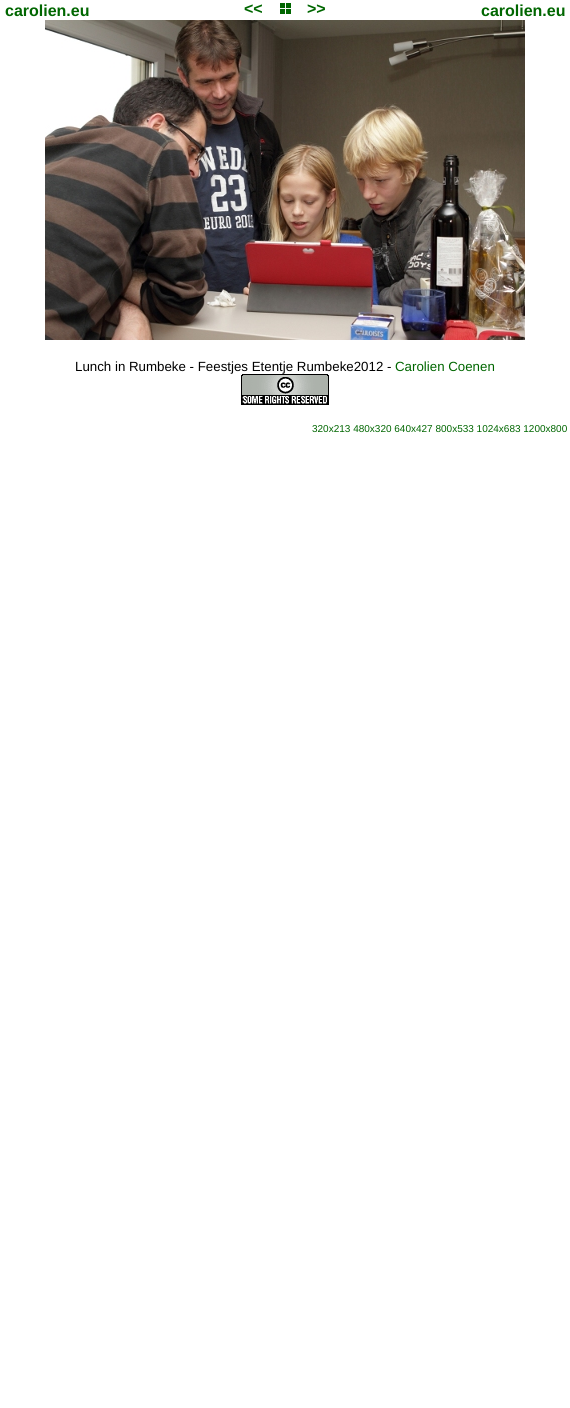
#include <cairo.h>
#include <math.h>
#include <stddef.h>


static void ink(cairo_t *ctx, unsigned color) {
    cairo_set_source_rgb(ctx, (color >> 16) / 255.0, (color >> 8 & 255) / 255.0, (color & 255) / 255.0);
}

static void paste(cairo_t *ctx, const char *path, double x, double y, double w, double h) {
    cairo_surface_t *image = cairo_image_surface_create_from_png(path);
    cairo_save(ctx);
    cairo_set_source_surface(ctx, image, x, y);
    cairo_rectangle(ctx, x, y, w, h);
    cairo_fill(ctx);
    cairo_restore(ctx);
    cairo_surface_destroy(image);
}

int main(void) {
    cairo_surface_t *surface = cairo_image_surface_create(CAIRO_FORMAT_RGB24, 570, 1408);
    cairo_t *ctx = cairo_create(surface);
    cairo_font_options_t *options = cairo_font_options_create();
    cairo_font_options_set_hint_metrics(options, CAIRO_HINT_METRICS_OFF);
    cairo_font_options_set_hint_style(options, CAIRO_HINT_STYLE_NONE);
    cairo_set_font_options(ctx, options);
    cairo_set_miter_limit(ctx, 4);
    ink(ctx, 0xFFFFFF);
    cairo_paint(ctx);
    cairo_select_font_face(ctx, "Liberation Sans", CAIRO_FONT_SLANT_NORMAL, CAIRO_FONT_WEIGHT_BOLD);
    cairo_set_font_size(ctx, 16);
    ink(ctx, 0x006600);
    cairo_move_to(ctx, 5, 16);
    cairo_show_text(ctx, "carolien.eu");
    cairo_move_to(ctx, 244, 14);
    cairo_show_text(ctx, "<<");
    paste(ctx, "media/1.png", 280, 3, 11, 11);
    cairo_move_to(ctx, 307, 14);
    cairo_show_text(ctx, ">>");
    cairo_move_to(ctx, 481, 16);
    cairo_show_text(ctx, "carolien.eu");
    paste(ctx, "media/2.png", 45, 20, 480, 320);
    cairo_select_font_face(ctx, "Liberation Sans", CAIRO_FONT_SLANT_NORMAL, CAIRO_FONT_WEIGHT_NORMAL);
    cairo_set_font_size(ctx, 13.3);
    ink(ctx, 0x000000);
    cairo_move_to(ctx, 75, 371);
    cairo_show_text(ctx, "Lunch in Rumbeke - Feestjes Etentje Rumbeke2012 -");
    ink(ctx, 0x006600);
    cairo_move_to(ctx, 395, 371);
    cairo_show_text(ctx, "Carolien Coenen");
    paste(ctx, "media/3.png", 241, 374, 88, 31);
    cairo_set_font_size(ctx, 10);
    cairo_move_to(ctx, 312, 432);
    cairo_show_text(ctx, "320x213 480x320 640x427 800x533 1024x683 1200x800");
    cairo_surface_write_to_png(surface, "image.png");
    cairo_font_options_destroy(options);
    cairo_destroy(ctx);
    cairo_surface_destroy(surface);
    return 0;
}
